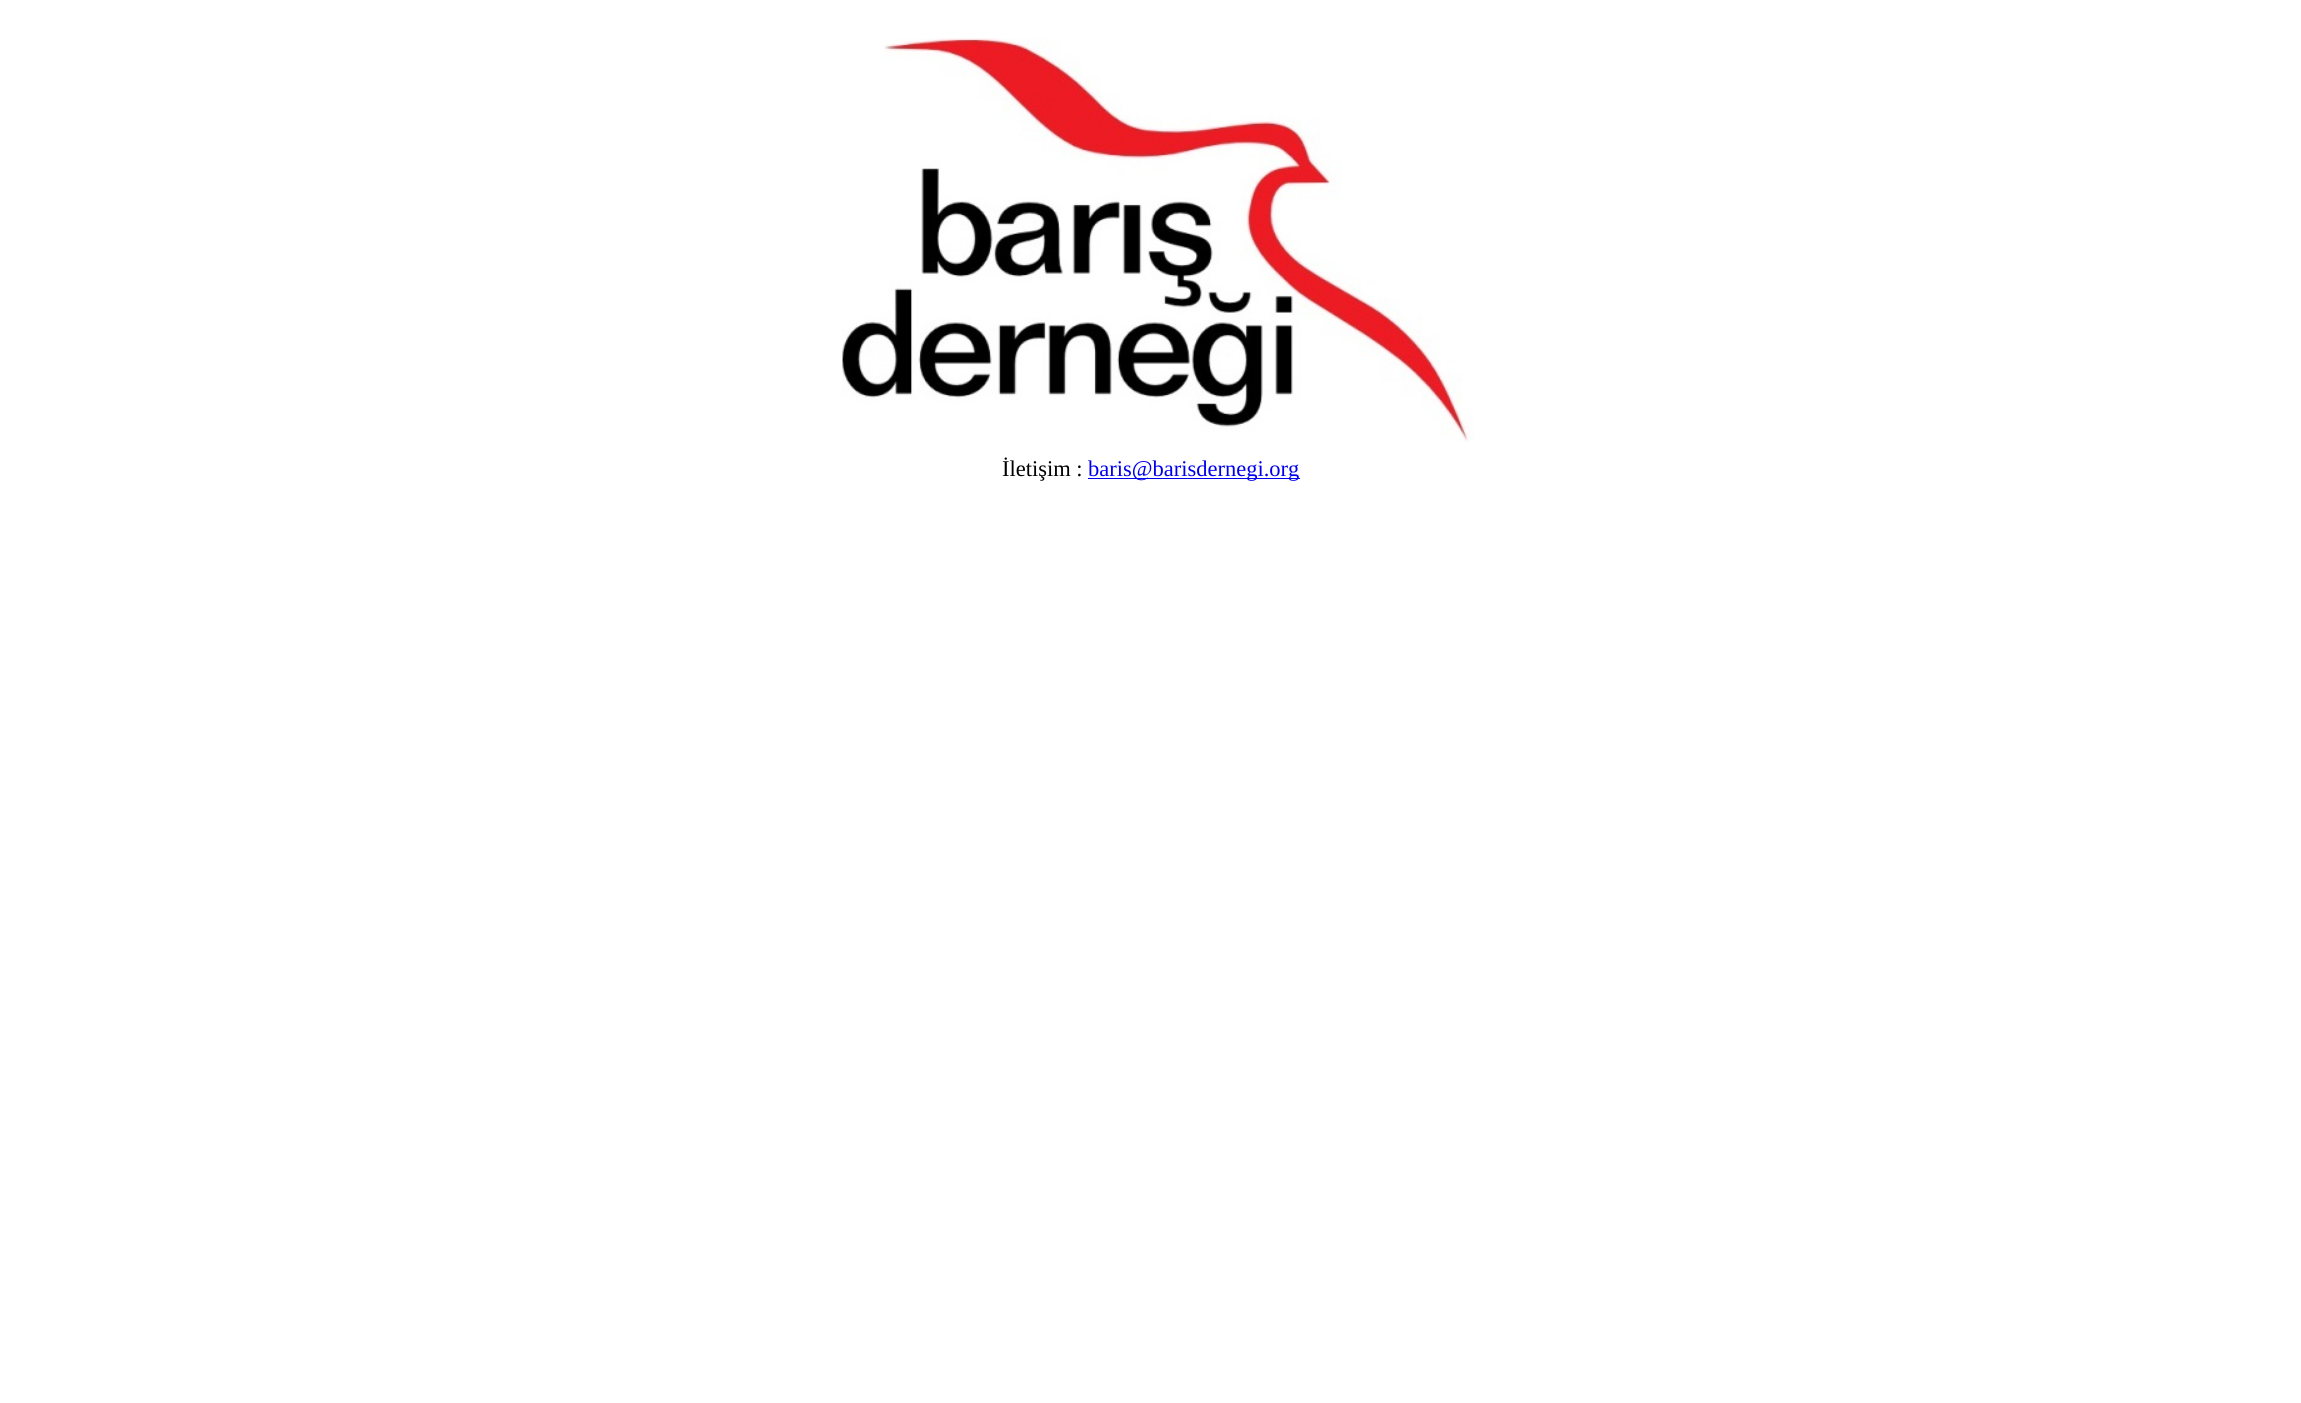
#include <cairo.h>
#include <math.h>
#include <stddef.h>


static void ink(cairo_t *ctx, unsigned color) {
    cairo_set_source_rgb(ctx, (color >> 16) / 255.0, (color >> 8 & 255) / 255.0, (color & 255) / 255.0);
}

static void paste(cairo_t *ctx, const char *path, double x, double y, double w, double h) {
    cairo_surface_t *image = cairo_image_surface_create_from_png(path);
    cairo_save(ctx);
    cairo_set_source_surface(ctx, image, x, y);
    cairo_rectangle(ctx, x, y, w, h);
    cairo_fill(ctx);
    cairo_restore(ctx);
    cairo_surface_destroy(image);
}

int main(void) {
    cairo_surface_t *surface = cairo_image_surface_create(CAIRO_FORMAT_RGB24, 2301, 1403);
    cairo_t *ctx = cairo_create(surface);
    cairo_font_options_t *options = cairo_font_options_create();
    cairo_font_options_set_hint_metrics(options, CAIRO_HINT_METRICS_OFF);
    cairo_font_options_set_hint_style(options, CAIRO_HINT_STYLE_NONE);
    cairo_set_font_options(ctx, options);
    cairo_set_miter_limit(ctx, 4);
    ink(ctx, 0xFFFFFF);
    cairo_paint(ctx);
    paste(ctx, "media/1.png", 842, 38, 632, 404);
    cairo_select_font_face(ctx, "Liberation Serif", CAIRO_FONT_SLANT_NORMAL, CAIRO_FONT_WEIGHT_NORMAL);
    cairo_set_font_size(ctx, 22.5);
    ink(ctx, 0x000000);
    cairo_move_to(ctx, 1002, 476);
    cairo_show_text(ctx, "İletişim :");
    ink(ctx, 0x0000EE);
    cairo_rectangle(ctx, 1088, 478, 212, 1);
    cairo_fill(ctx);
    cairo_move_to(ctx, 1088, 476);
    cairo_show_text(ctx, "baris@barisdernegi.org");
    cairo_surface_write_to_png(surface, "image.png");
    cairo_font_options_destroy(options);
    cairo_destroy(ctx);
    cairo_surface_destroy(surface);
    return 0;
}
